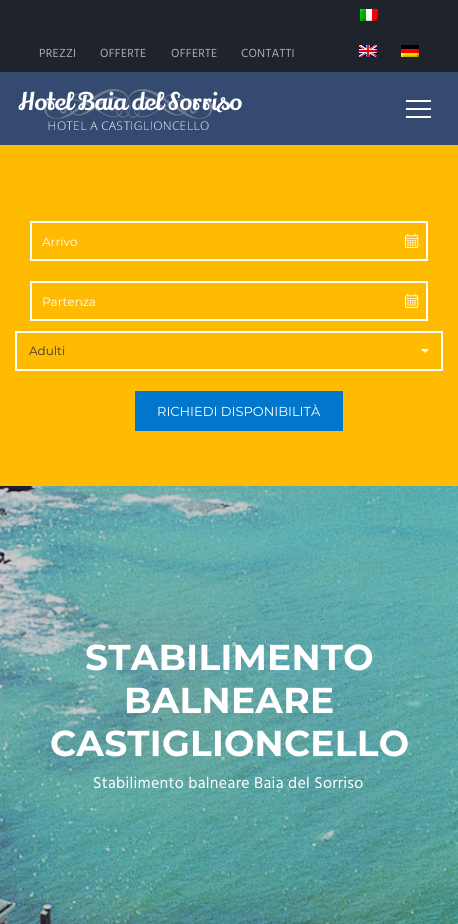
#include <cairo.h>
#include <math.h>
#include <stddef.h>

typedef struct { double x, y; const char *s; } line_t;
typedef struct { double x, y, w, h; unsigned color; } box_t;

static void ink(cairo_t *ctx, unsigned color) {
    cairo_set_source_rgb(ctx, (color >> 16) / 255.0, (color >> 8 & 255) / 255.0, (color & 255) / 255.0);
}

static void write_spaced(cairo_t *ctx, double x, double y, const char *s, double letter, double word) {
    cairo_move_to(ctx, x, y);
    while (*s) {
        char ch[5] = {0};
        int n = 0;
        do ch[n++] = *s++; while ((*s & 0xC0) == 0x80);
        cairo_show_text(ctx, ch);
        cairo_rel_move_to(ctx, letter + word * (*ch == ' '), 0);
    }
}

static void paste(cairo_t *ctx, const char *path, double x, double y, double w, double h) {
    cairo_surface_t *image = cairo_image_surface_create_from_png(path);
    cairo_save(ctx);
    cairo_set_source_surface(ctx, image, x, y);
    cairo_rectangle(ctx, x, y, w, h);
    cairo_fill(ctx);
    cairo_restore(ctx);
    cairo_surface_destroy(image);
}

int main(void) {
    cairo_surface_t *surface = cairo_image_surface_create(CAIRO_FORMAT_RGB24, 458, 924);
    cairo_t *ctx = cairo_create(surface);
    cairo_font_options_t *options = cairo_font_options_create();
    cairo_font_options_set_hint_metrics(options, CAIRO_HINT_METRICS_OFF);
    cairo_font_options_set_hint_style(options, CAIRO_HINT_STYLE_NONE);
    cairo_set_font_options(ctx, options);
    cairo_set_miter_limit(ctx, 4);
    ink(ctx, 0xFFFFFF);
    cairo_paint(ctx);
    ink(ctx, 0x1F232B);
    cairo_rectangle(ctx, 0, 0, 458, 72);
    cairo_fill(ctx);
    cairo_select_font_face(ctx, "Hind", CAIRO_FONT_SLANT_NORMAL, CAIRO_FONT_WEIGHT_NORMAL);
    cairo_set_font_size(ctx, 12);
    ink(ctx, 0xACACAC);
    {
        static const line_t items[] = {
            {39, 57, "PREZZI"},
            {100, 57, "OFFERTE"},
            {171, 57, "OFFERTE"},
            {241, 57, "CONTATTI"},
        };
        for (size_t i = 0; i < sizeof items / sizeof *items; i++) {
            write_spaced(ctx, items[i].x, items[i].y, items[i].s, 0.25, 0);
        }
    }
    paste(ctx, "media/1.png", 360, 9, 18, 12);
    paste(ctx, "media/2.png", 359, 45, 18, 12);
    paste(ctx, "media/3.png", 401, 45, 18, 12);
    ink(ctx, 0x344A71);
    cairo_rectangle(ctx, 0, 72, 458, 73);
    cairo_fill(ctx);
    paste(ctx, "media/4.png", 18, 89, 224, 41);
    {
        static const box_t items[] = {
            {406, 108, 25, 2, 0xFFFFFF},
            {406, 100, 25, 2, 0xFFFFFF},
            {406, 116, 25, 2, 0xFFFFFF},
            {0, 145, 458, 341, 0xFEBB02},
        };
        for (size_t i = 0; i < sizeof items / sizeof *items; i++) {
            ink(ctx, items[i].color);
            cairo_rectangle(ctx, items[i].x, items[i].y, items[i].w, items[i].h);
            cairo_fill(ctx);
        }
    }
    cairo_rectangle(ctx, 31, 222, 396, 38);
    ink(ctx, 0xFFFFFF);
    cairo_stroke(ctx);
    cairo_select_font_face(ctx, "Montserrat", CAIRO_FONT_SLANT_NORMAL, CAIRO_FONT_WEIGHT_NORMAL);
    cairo_move_to(ctx, 42, 246);
    cairo_show_text(ctx, "Arrivo");
    paste(ctx, "media/5.png", 405, 233, 14, 15);
    cairo_rectangle(ctx, 31, 282, 396, 38);
    cairo_stroke(ctx);
    cairo_move_to(ctx, 42, 306);
    cairo_show_text(ctx, "Partenza");
    paste(ctx, "media/5.png", 405, 293, 14, 15);
    cairo_rectangle(ctx, 16, 332, 426, 38);
    cairo_stroke(ctx);
    ink(ctx, 0x383838);
    cairo_move_to(ctx, 29, 355);
    cairo_show_text(ctx, "Adulti");
    ink(ctx, 0xFFFFFF);
    cairo_new_path(ctx);
    cairo_move_to(ctx, 421, 349);
    cairo_line_to(ctx, 429, 349);
    cairo_line_to(ctx, 425, 353);
    cairo_close_path(ctx);
    cairo_fill(ctx);
    ink(ctx, 0x0077CC);
    cairo_rectangle(ctx, 135, 391, 208, 40);
    cairo_fill(ctx);
    cairo_set_font_size(ctx, 13);
    ink(ctx, 0xFFFFFF);
    cairo_move_to(ctx, 157, 416);
    cairo_show_text(ctx, "RICHIEDI DISPONIBILITÀ");
    paste(ctx, "media/6.png", 0, 486, 458, 438);
    cairo_select_font_face(ctx, "Montserrat", CAIRO_FONT_SLANT_NORMAL, CAIRO_FONT_WEIGHT_BOLD);
    cairo_set_font_size(ctx, 36);
    {
        static const line_t items[] = {
            {85, 670, "STABILIMENTO"},
            {124, 713, "BALNEARE"},
            {50, 756, "CASTIGLIONCELLO"},
        };
        for (size_t i = 0; i < sizeof items / sizeof *items; i++) {
            write_spaced(ctx, items[i].x, items[i].y, items[i].s, 0.25, 0);
        }
    }
    cairo_select_font_face(ctx, "Hind", CAIRO_FONT_SLANT_NORMAL, CAIRO_FONT_WEIGHT_NORMAL);
    cairo_set_font_size(ctx, 16);
    write_spaced(ctx, 93, 788, "Stabilimento balneare Baia del Sorriso", 0.3, 0);
    cairo_surface_write_to_png(surface, "image.png");
    cairo_font_options_destroy(options);
    cairo_destroy(ctx);
    cairo_surface_destroy(surface);
    return 0;
}
